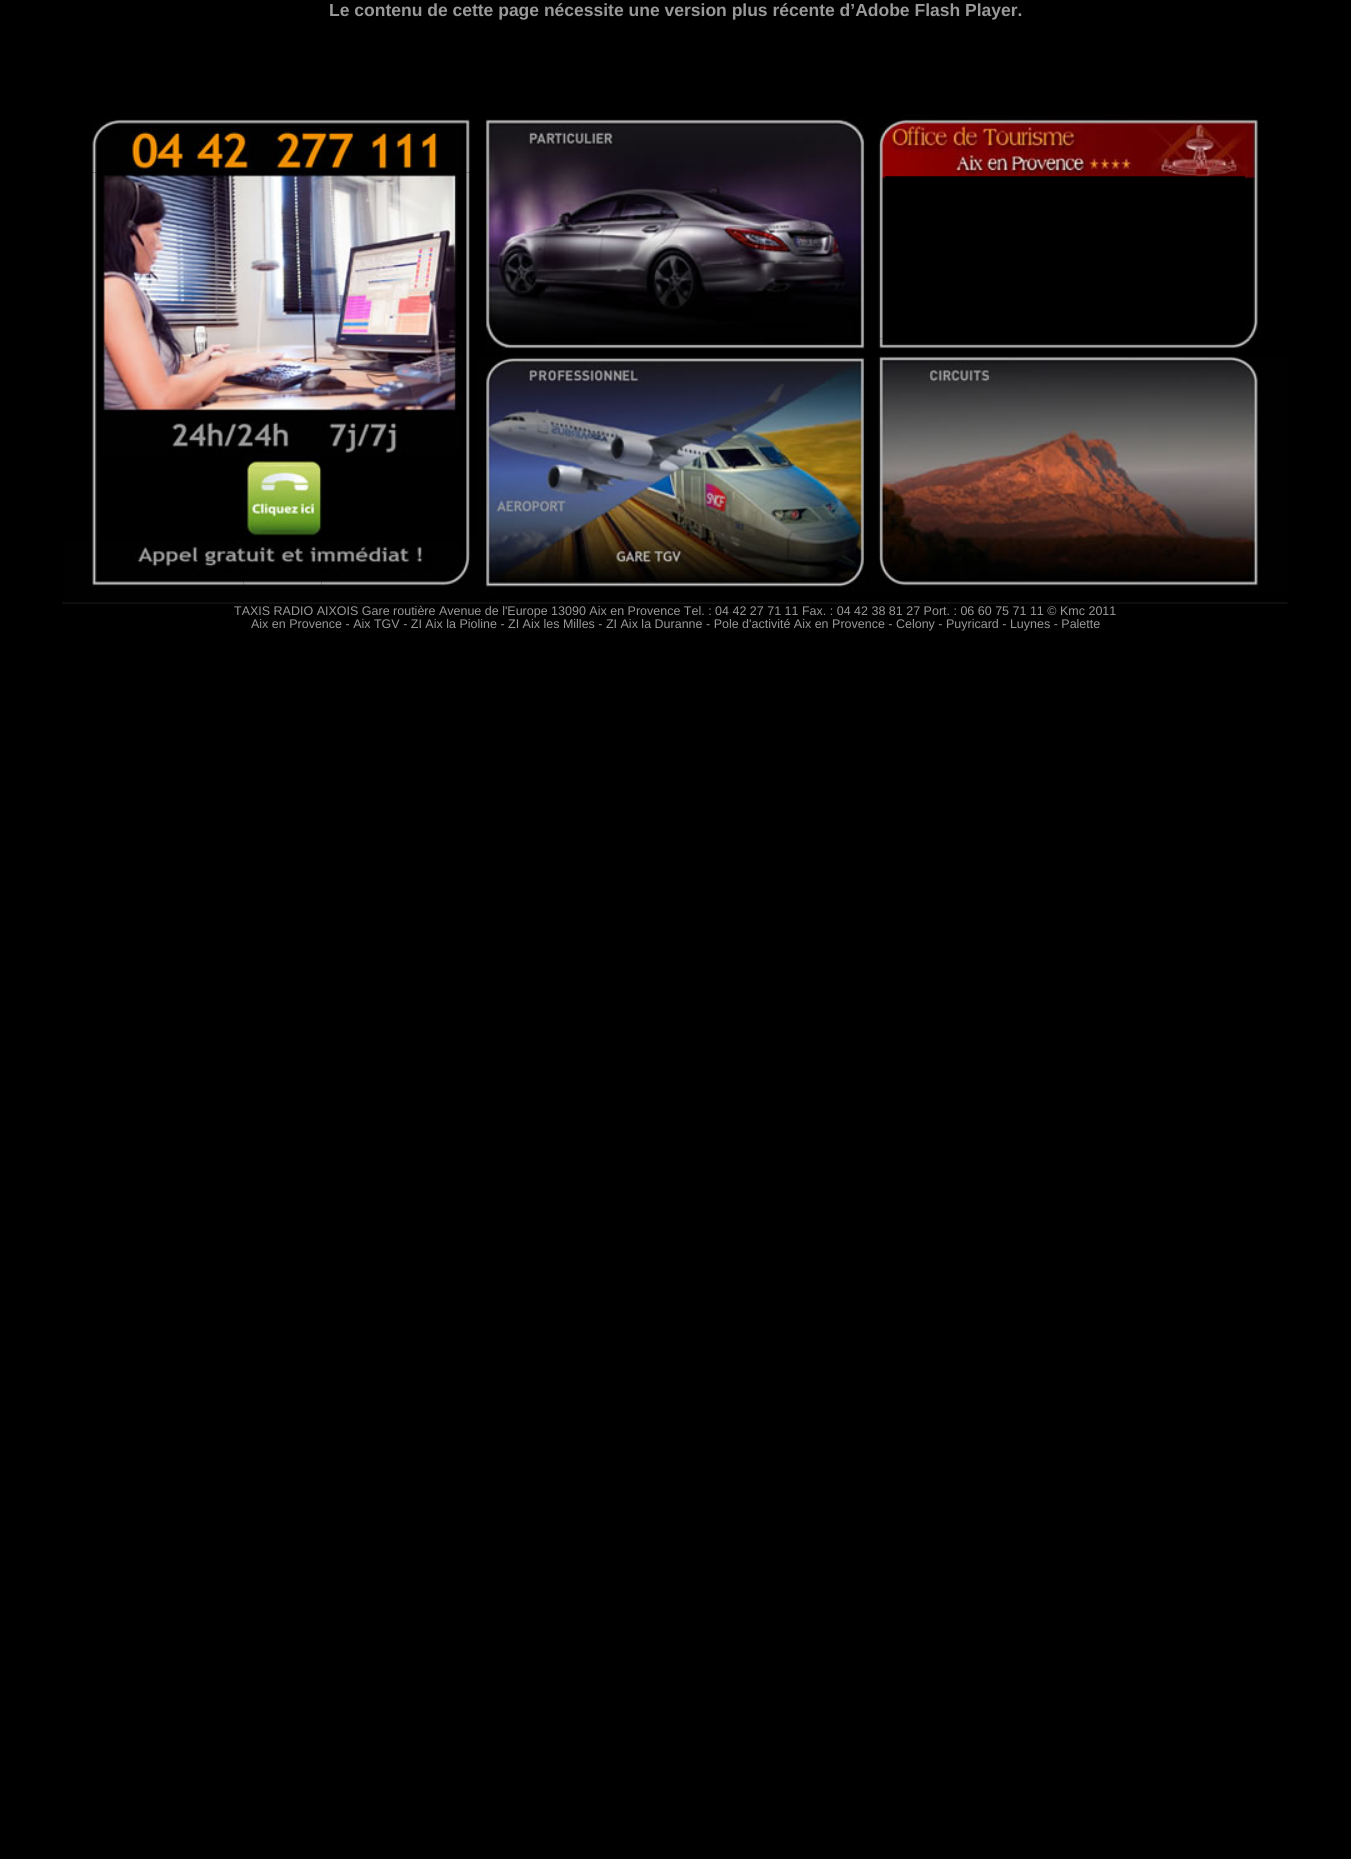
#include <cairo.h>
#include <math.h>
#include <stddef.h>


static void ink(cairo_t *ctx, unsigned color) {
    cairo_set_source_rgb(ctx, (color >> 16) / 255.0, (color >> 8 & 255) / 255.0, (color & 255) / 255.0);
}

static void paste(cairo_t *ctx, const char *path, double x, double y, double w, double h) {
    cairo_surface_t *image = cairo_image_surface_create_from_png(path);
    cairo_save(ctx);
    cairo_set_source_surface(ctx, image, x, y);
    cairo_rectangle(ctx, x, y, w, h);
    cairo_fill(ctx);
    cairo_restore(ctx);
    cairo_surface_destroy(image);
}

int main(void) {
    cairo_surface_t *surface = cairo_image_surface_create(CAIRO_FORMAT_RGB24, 1351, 1859);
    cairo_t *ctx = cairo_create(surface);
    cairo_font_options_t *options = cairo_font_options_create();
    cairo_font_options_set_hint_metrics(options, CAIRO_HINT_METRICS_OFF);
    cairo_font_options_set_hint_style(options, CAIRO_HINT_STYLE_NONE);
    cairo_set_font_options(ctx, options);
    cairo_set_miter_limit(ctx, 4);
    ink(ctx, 0x000000);
    cairo_paint(ctx);
    cairo_select_font_face(ctx, "Liberation Sans", CAIRO_FONT_SLANT_NORMAL, CAIRO_FONT_WEIGHT_BOLD);
    cairo_set_font_size(ctx, 17.5);
    ink(ctx, 0x999999);
    cairo_move_to(ctx, 329, 16);
    cairo_show_text(ctx, "Le contenu de cette page nécessite une version plus récente d’Adobe Flash Player.");
    paste(ctx, "media/1.png", 92, 119, 379, 54);
    paste(ctx, "media/2.png", 485, 117, 380, 234);
    paste(ctx, "media/3.png", 878, 130, 7, 209);
    paste(ctx, "media/4.png", 885, 114, 360, 63);
    paste(ctx, "media/5.png", 1245, 115, 20, 224);
    paste(ctx, "media/6.png", 92, 172, 378, 283);
    paste(ctx, "media/7.png", 878, 338, 374, 11);
    paste(ctx, "media/8.png", 92, 455, 5, 85);
    paste(ctx, "media/9.png", 244, 455, 78, 81);
    paste(ctx, "media/10.png", 466, 455, 4, 85);
    paste(ctx, "media/11.png", 475, 357, 394, 247);
    paste(ctx, "media/12.png", 869, 356, 419, 248);
    paste(ctx, "media/13.png", 62, 540, 182, 64);
    paste(ctx, "media/14.png", 243, 540, 79, 64);
    paste(ctx, "media/15.png", 321, 540, 154, 64);
    cairo_select_font_face(ctx, "Liberation Sans", CAIRO_FONT_SLANT_NORMAL, CAIRO_FONT_WEIGHT_NORMAL);
    cairo_set_font_size(ctx, 12.5);
    cairo_move_to(ctx, 234, 615);
    cairo_show_text(ctx, "TAXIS RADIO AIXOIS Gare routière Avenue de l'Europe 13090 Aix en Provence Tel. : 04 42 27 71 11 Fax. : 04 42 38 81 27 Port. : 06 60 75 71 11 © Kmc 2011");
    cairo_move_to(ctx, 251, 628);
    cairo_show_text(ctx, "Aix en Provence - Aix TGV - ZI Aix la Pioline - ZI Aix les Milles - ZI Aix la Duranne - Pole d'activité Aix en Provence - Celony - Puyricard - Luynes - Palette");
    cairo_surface_write_to_png(surface, "image.png");
    cairo_font_options_destroy(options);
    cairo_destroy(ctx);
    cairo_surface_destroy(surface);
    return 0;
}
